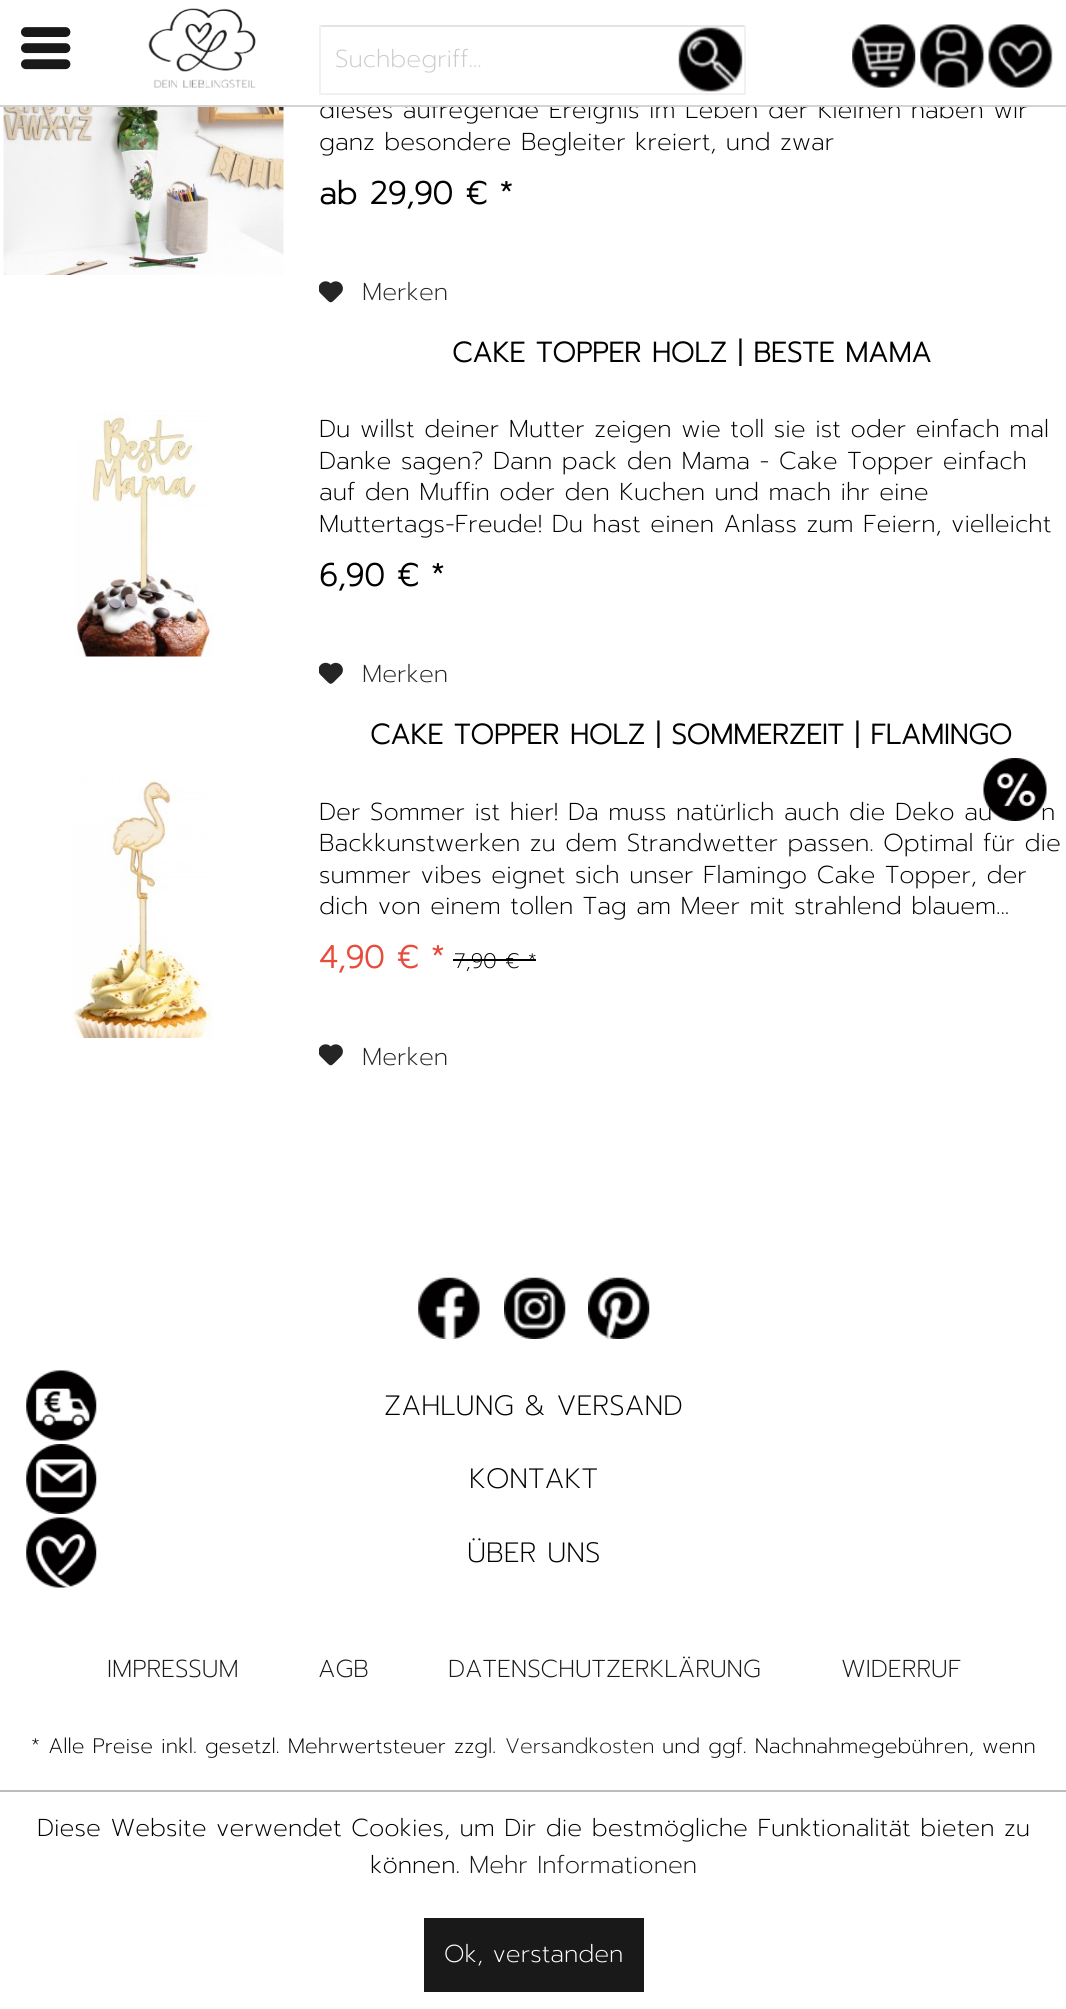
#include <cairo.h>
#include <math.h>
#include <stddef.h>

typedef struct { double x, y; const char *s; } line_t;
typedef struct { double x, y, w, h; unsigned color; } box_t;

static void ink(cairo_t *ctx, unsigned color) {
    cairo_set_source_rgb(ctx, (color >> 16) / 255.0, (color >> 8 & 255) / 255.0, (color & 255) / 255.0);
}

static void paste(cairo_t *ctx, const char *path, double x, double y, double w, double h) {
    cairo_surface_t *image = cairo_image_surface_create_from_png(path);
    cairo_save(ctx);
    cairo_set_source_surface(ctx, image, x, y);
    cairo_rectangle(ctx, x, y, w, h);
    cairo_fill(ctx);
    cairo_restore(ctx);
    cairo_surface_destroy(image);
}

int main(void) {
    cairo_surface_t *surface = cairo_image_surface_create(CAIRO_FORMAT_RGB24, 1066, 2009);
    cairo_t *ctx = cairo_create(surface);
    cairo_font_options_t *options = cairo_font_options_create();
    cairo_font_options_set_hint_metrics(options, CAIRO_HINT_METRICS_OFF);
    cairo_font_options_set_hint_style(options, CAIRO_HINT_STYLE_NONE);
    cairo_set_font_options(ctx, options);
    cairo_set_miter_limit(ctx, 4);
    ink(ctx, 0xFFFFFF);
    cairo_paint(ctx);
    cairo_select_font_face(ctx, "Prompt ExtraLight", CAIRO_FONT_SLANT_NORMAL, CAIRO_FONT_WEIGHT_NORMAL);
    cairo_set_font_size(ctx, 24.5);
    ink(ctx, 0x000000);
    cairo_move_to(ctx, 319, 118);
    cairo_show_text(ctx, "dieses aufregende Ereignis im Leben der Kleinen haben wir");
    ink(ctx, 0xFFFFFF);
    cairo_rectangle(ctx, 331, 99, 686, 6);
    cairo_fill(ctx);
    ink(ctx, 0xD3D3D3);
    cairo_rectangle(ctx, 0, 105, 1066, 2);
    cairo_fill(ctx);
    paste(ctx, "media/1.png", 21, 27, 50, 43);
    paste(ctx, "media/2.png", 148, 8, 108, 80);
    {
        static const box_t items[] = {
            {319, 25, 427, 2, 0xE4E4E4},
            {744, 25, 2, 70, 0xF1F1F1},
            {319, 93, 427, 2, 0xF1F1F1},
            {319, 25, 2, 70, 0xF1F1F1},
        };
        for (size_t i = 0; i < sizeof items / sizeof *items; i++) {
            ink(ctx, items[i].color);
            cairo_rectangle(ctx, items[i].x, items[i].y, items[i].w, items[i].h);
            cairo_fill(ctx);
        }
    }
    ink(ctx, 0xCCCCCC);
    cairo_move_to(ctx, 335, 67);
    cairo_show_text(ctx, "Suchbegriff...");
    paste(ctx, "media/3.png", 678, 27, 65, 65);
    paste(ctx, "media/4.png", 852, 24, 64, 64);
    paste(ctx, "media/5.png", 920, 24, 65, 64);
    paste(ctx, "media/6.png", 988, 24, 65, 64);
    paste(ctx, "media/7.png", 3, 107, 281, 168);
    ink(ctx, 0x000000);
    cairo_move_to(ctx, 319, 150);
    cairo_show_text(ctx, "ganz besondere Begleiter kreiert, und zwar");
    cairo_select_font_face(ctx, "Prompt", CAIRO_FONT_SLANT_NORMAL, CAIRO_FONT_WEIGHT_BOLD);
    cairo_set_font_size(ctx, 31.5);
    cairo_move_to(ctx, 319, 204);
    cairo_show_text(ctx, "ab 29,90 € *");
    paste(ctx, "media/8.png", 319, 281, 24, 22);
    cairo_select_font_face(ctx, "Prompt ExtraLight", CAIRO_FONT_SLANT_NORMAL, CAIRO_FONT_WEIGHT_NORMAL);
    cairo_set_font_size(ctx, 24.5);
    ink(ctx, 0x262525);
    cairo_move_to(ctx, 362, 300);
    cairo_show_text(ctx, "Merken");
    cairo_select_font_face(ctx, "Prompt", CAIRO_FONT_SLANT_NORMAL, CAIRO_FONT_WEIGHT_BOLD);
    cairo_set_font_size(ctx, 28);
    ink(ctx, 0x000000);
    cairo_move_to(ctx, 452, 362);
    cairo_show_text(ctx, "CAKE TOPPER HOLZ | BESTE MAMA");
    paste(ctx, "media/9.png", 75, 409, 138, 248);
    cairo_select_font_face(ctx, "Prompt ExtraLight", CAIRO_FONT_SLANT_NORMAL, CAIRO_FONT_WEIGHT_NORMAL);
    cairo_set_font_size(ctx, 24.5);
    {
        static const line_t items[] = {
            {319, 437, "Du willst deiner Mutter zeigen wie toll sie ist oder einfach mal"},
            {319, 469, "Danke sagen? Dann pack den Mama - Cake Topper einfach"},
            {319, 500, "auf den Muffin oder den Kuchen und mach ihr eine"},
            {319, 532, "Muttertags-Freude! Du hast einen Anlass zum Feiern, vielleicht"},
        };
        for (size_t i = 0; i < sizeof items / sizeof *items; i++) {
            cairo_move_to(ctx, items[i].x, items[i].y);
            cairo_show_text(ctx, items[i].s);
        }
    }
    cairo_select_font_face(ctx, "Prompt", CAIRO_FONT_SLANT_NORMAL, CAIRO_FONT_WEIGHT_BOLD);
    cairo_set_font_size(ctx, 31.5);
    cairo_move_to(ctx, 319, 586);
    cairo_show_text(ctx, "6,90 € *");
    paste(ctx, "media/10.png", 319, 662, 24, 22);
    cairo_select_font_face(ctx, "Prompt ExtraLight", CAIRO_FONT_SLANT_NORMAL, CAIRO_FONT_WEIGHT_NORMAL);
    cairo_set_font_size(ctx, 24.5);
    ink(ctx, 0x262525);
    cairo_move_to(ctx, 362, 682);
    cairo_show_text(ctx, "Merken");
    cairo_select_font_face(ctx, "Prompt", CAIRO_FONT_SLANT_NORMAL, CAIRO_FONT_WEIGHT_BOLD);
    cairo_set_font_size(ctx, 28);
    ink(ctx, 0x000000);
    cairo_move_to(ctx, 370, 744);
    cairo_show_text(ctx, "CAKE TOPPER HOLZ | SOMMERZEIT | FLAMINGO");
    paste(ctx, "media/11.png", 72, 776, 141, 262);
    cairo_select_font_face(ctx, "Prompt ExtraLight", CAIRO_FONT_SLANT_NORMAL, CAIRO_FONT_WEIGHT_NORMAL);
    cairo_set_font_size(ctx, 24.5);
    {
        static const line_t items[] = {
            {319, 820, "Der Sommer ist hier! Da muss natürlich auch die Deko au"},
            {1041, 820, "n"},
            {319, 851, "Backkunstwerken zu dem Strandwetter passen. Optimal für die"},
            {319, 883, "summer vibes eignet sich unser Flamingo Cake Topper, der"},
            {319, 914, "dich von einem tollen Tag am Meer mit strahlend blauem..."},
        };
        for (size_t i = 0; i < sizeof items / sizeof *items; i++) {
            cairo_move_to(ctx, items[i].x, items[i].y);
            cairo_show_text(ctx, items[i].s);
        }
    }
    cairo_select_font_face(ctx, "Prompt", CAIRO_FONT_SLANT_NORMAL, CAIRO_FONT_WEIGHT_BOLD);
    cairo_set_font_size(ctx, 31.5);
    ink(ctx, 0xE74C3C);
    cairo_move_to(ctx, 319, 968);
    cairo_show_text(ctx, "4,90 € *");
    cairo_select_font_face(ctx, "Prompt ExtraLight", CAIRO_FONT_SLANT_NORMAL, CAIRO_FONT_WEIGHT_NORMAL);
    cairo_set_font_size(ctx, 21);
    ink(ctx, 0x000000);
    cairo_move_to(ctx, 454, 968);
    cairo_show_text(ctx, "7,90 € *");
    cairo_rectangle(ctx, 453, 959, 83, 2);
    cairo_fill(ctx);
    paste(ctx, "media/8.png", 319, 1044, 24, 22);
    cairo_set_font_size(ctx, 24.5);
    ink(ctx, 0x262525);
    cairo_move_to(ctx, 362, 1065);
    cairo_show_text(ctx, "Merken");
    paste(ctx, "media/12.png", 983, 758, 64, 63);
    paste(ctx, "media/13.png", 418, 1277, 62, 62);
    paste(ctx, "media/14.png", 504, 1277, 62, 62);
    paste(ctx, "media/15.png", 588, 1277, 62, 62);
    paste(ctx, "media/16.png", 26, 1370, 71, 71);
    cairo_set_font_size(ctx, 28);
    ink(ctx, 0x000000);
    cairo_move_to(ctx, 384, 1415);
    cairo_show_text(ctx, "ZAHLUNG & VERSAND");
    paste(ctx, "media/17.png", 26, 1444, 71, 70);
    cairo_move_to(ctx, 469, 1488);
    cairo_show_text(ctx, "KONTAKT");
    paste(ctx, "media/18.png", 26, 1517, 71, 71);
    cairo_move_to(ctx, 467, 1562);
    cairo_show_text(ctx, "ÜBER UNS");
    cairo_set_font_size(ctx, 24.5);
    ink(ctx, 0x191919);
    {
        static const line_t items[] = {
            {107, 1677, "IMPRESSUM"},
            {318, 1677, "AGB"},
            {448, 1677, "DATENSCHUTZERKLÄRUNG"},
            {841, 1677, "WIDERRUF"},
        };
        for (size_t i = 0; i < sizeof items / sizeof *items; i++) {
            cairo_move_to(ctx, items[i].x, items[i].y);
            cairo_show_text(ctx, items[i].s);
        }
    }
    cairo_set_font_size(ctx, 21);
    ink(ctx, 0x000000);
    cairo_move_to(ctx, 31, 1753);
    cairo_show_text(ctx, "* Alle Preise inkl. gesetzl. Mehrwertsteuer zzgl.");
    ink(ctx, 0x191919);
    cairo_move_to(ctx, 505, 1753);
    cairo_show_text(ctx, "Versandkosten");
    ink(ctx, 0x000000);
    cairo_move_to(ctx, 662, 1753);
    cairo_show_text(ctx, "und ggf. Nachnahmegebühren, wenn");
    ink(ctx, 0xBCBCBC);
    cairo_rectangle(ctx, 0, 1790, 1066, 2);
    cairo_fill(ctx);
    cairo_set_font_size(ctx, 24.5);
    ink(ctx, 0x000000);
    cairo_move_to(ctx, 37, 1836);
    cairo_show_text(ctx, "Diese Website verwendet Cookies, um Dir die bestmögliche Funktionalität bieten zu");
    cairo_move_to(ctx, 370, 1873);
    cairo_show_text(ctx, "können.");
    ink(ctx, 0x191919);
    cairo_move_to(ctx, 469, 1873);
    cairo_show_text(ctx, "Mehr Informationen");
    cairo_rectangle(ctx, 424, 1918, 220, 74);
    cairo_fill(ctx);
    ink(ctx, 0xFFFFFF);
    cairo_move_to(ctx, 444, 1962);
    cairo_show_text(ctx, "Ok, verstanden");
    cairo_surface_write_to_png(surface, "image.png");
    cairo_font_options_destroy(options);
    cairo_destroy(ctx);
    cairo_surface_destroy(surface);
    return 0;
}
